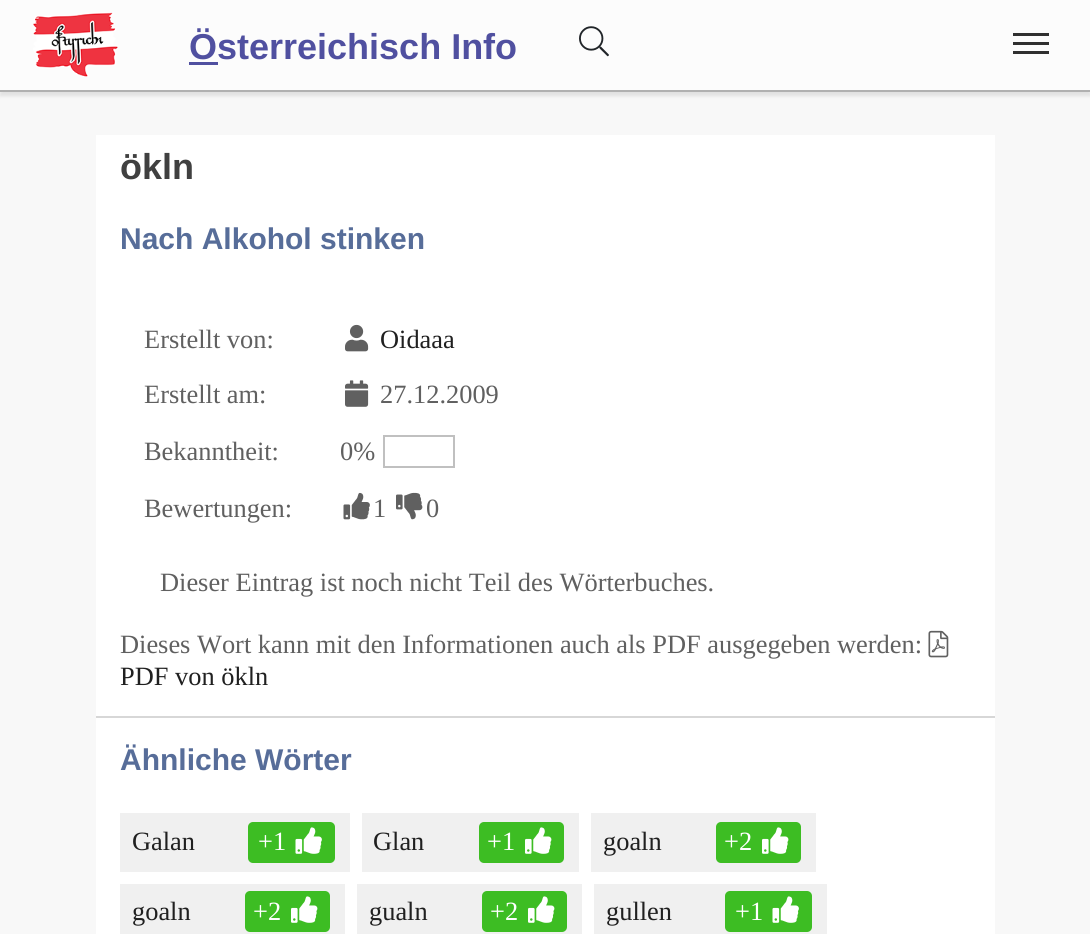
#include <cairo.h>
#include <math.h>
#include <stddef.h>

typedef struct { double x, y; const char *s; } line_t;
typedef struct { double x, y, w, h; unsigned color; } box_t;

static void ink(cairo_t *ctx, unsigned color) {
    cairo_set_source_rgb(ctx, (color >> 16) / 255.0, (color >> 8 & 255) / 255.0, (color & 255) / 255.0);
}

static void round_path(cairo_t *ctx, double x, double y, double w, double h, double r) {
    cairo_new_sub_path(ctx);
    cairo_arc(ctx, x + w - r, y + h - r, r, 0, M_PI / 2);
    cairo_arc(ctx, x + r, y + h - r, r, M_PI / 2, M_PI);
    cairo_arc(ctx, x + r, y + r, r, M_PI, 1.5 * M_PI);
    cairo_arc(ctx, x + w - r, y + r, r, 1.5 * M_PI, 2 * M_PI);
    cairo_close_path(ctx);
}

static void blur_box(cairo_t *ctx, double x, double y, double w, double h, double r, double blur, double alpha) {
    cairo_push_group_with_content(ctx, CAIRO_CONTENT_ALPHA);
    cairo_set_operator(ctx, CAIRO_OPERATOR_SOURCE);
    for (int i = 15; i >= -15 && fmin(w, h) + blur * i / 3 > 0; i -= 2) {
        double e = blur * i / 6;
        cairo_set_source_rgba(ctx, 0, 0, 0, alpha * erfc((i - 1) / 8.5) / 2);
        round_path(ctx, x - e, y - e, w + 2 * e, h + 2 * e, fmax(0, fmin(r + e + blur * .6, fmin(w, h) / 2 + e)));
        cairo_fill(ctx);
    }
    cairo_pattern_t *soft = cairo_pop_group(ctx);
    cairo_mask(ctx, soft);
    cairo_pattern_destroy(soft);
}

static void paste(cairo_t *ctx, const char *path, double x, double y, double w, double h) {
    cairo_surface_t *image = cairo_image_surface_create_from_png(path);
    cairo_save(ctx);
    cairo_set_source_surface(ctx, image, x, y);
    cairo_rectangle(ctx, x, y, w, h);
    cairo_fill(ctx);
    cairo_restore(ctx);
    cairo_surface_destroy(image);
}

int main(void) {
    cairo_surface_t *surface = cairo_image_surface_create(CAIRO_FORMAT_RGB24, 1090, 934);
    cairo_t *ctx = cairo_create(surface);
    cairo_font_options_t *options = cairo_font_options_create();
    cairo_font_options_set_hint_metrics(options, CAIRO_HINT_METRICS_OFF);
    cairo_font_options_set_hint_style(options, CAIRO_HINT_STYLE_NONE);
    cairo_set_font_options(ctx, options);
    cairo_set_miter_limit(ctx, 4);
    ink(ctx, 0xF8F8F8);
    cairo_paint(ctx);
    ink(ctx, 0x000000);
    blur_box(ctx, 0, 5, 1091, 91, 0, 2, 0.1);
    ink(ctx, 0xFCFCFC);
    cairo_rectangle(ctx, 0, 0, 1090, 90);
    cairo_fill(ctx);
    ink(ctx, 0xB0B0B0);
    cairo_rectangle(ctx, 0, 90, 1090, 2);
    cairo_fill(ctx);
    paste(ctx, "media/1.png", 33, 12, 85, 65);
    cairo_select_font_face(ctx, "Liberation Sans", CAIRO_FONT_SLANT_NORMAL, CAIRO_FONT_WEIGHT_BOLD);
    cairo_set_font_size(ctx, 36);
    ink(ctx, 0x5050A0);
    cairo_move_to(ctx, 189, 59);
    cairo_show_text(ctx, "Österreichisch Info");
    cairo_rectangle(ctx, 189, 62, 29, 3);
    cairo_fill(ctx);
    paste(ctx, "media/2.png", 579, 26, 30, 31);
    {
        static const box_t items[] = {
            {1013, 42, 36, 3, 0x303030},
            {1013, 33, 36, 3, 0x303030},
            {1013, 51, 36, 3, 0x303030},
            {96, 135, 899, 799, 0xFFFFFF},
        };
        for (size_t i = 0; i < sizeof items / sizeof *items; i++) {
            ink(ctx, items[i].color);
            cairo_rectangle(ctx, items[i].x, items[i].y, items[i].w, items[i].h);
            cairo_fill(ctx);
        }
    }
    ink(ctx, 0x404040);
    cairo_move_to(ctx, 120, 179);
    cairo_show_text(ctx, "ökln");
    cairo_set_font_size(ctx, 30);
    ink(ctx, 0x576D99);
    cairo_move_to(ctx, 120, 249);
    cairo_show_text(ctx, "Nach Alkohol stinken");
    cairo_select_font_face(ctx, "Liberation Serif", CAIRO_FONT_SLANT_NORMAL, CAIRO_FONT_WEIGHT_NORMAL);
    cairo_set_font_size(ctx, 26.4);
    ink(ctx, 0x606060);
    cairo_move_to(ctx, 144, 348);
    cairo_show_text(ctx, "Erstellt von:");
    paste(ctx, "media/3.png", 345, 324, 24, 28);
    ink(ctx, 0x202020);
    cairo_move_to(ctx, 380, 348);
    cairo_show_text(ctx, "Oidaaa");
    ink(ctx, 0x606060);
    cairo_move_to(ctx, 144, 403);
    cairo_show_text(ctx, "Erstellt am:");
    paste(ctx, "media/4.png", 345, 380, 24, 27);
    {
        static const line_t items[] = {
            {380, 403, "27.12.2009"},
            {144, 460, "Bekanntheit:"},
            {340, 460, "0%"},
        };
        for (size_t i = 0; i < sizeof items / sizeof *items; i++) {
            cairo_move_to(ctx, items[i].x, items[i].y);
            cairo_show_text(ctx, items[i].s);
        }
    }
    cairo_rectangle(ctx, 384, 436, 70, 31);
    ink(ctx, 0xC0C0C0);
    cairo_stroke(ctx);
    ink(ctx, 0x606060);
    cairo_move_to(ctx, 144, 517);
    cairo_show_text(ctx, "Bewertungen:");
    paste(ctx, "media/5.png", 343, 492, 27, 28);
    cairo_move_to(ctx, 373, 517);
    cairo_show_text(ctx, "1");
    paste(ctx, "media/6.png", 396, 492, 27, 28);
    {
        static const line_t items[] = {
            {426, 517, "0"},
            {160, 591, "Dieser Eintrag ist noch nicht Teil des Wörterbuches."},
            {120, 653, "Dieses Wort kann mit den Informationen auch als PDF ausgegeben werden:"},
        };
        for (size_t i = 0; i < sizeof items / sizeof *items; i++) {
            cairo_move_to(ctx, items[i].x, items[i].y);
            cairo_show_text(ctx, items[i].s);
        }
    }
    paste(ctx, "media/7.png", 928, 630, 21, 28);
    ink(ctx, 0x202020);
    cairo_move_to(ctx, 120, 685);
    cairo_show_text(ctx, "PDF von ökln");
    ink(ctx, 0xD7D7D7);
    cairo_rectangle(ctx, 96, 716, 899, 2);
    cairo_fill(ctx);
    cairo_select_font_face(ctx, "Liberation Sans", CAIRO_FONT_SLANT_NORMAL, CAIRO_FONT_WEIGHT_BOLD);
    cairo_set_font_size(ctx, 30);
    ink(ctx, 0x576D99);
    cairo_move_to(ctx, 120, 770);
    cairo_show_text(ctx, "Ähnliche Wörter");
    ink(ctx, 0xF0F0F0);
    cairo_rectangle(ctx, 120, 813, 230, 59);
    cairo_fill(ctx);
    cairo_select_font_face(ctx, "Liberation Serif", CAIRO_FONT_SLANT_NORMAL, CAIRO_FONT_WEIGHT_NORMAL);
    cairo_set_font_size(ctx, 26.4);
    ink(ctx, 0x202020);
    cairo_move_to(ctx, 132, 850);
    cairo_show_text(ctx, "Galan");
    ink(ctx, 0x3DBD23);
    round_path(ctx, 248, 822, 87, 41, 5);
    cairo_fill(ctx);
    ink(ctx, 0xFFFFFF);
    cairo_move_to(ctx, 258, 850);
    cairo_show_text(ctx, "+1");
    paste(ctx, "media/8.png", 295, 827, 27, 27);
    ink(ctx, 0xF0F0F0);
    cairo_rectangle(ctx, 362, 813, 217, 59);
    cairo_fill(ctx);
    ink(ctx, 0x202020);
    cairo_move_to(ctx, 373, 850);
    cairo_show_text(ctx, "Glan");
    ink(ctx, 0x3DBD23);
    round_path(ctx, 479, 822, 85, 41, 5);
    cairo_fill(ctx);
    ink(ctx, 0xFFFFFF);
    cairo_move_to(ctx, 487, 850);
    cairo_show_text(ctx, "+1");
    paste(ctx, "media/9.png", 525, 827, 27, 27);
    ink(ctx, 0xF0F0F0);
    cairo_rectangle(ctx, 591, 813, 225, 59);
    cairo_fill(ctx);
    ink(ctx, 0x202020);
    cairo_move_to(ctx, 603, 850);
    cairo_show_text(ctx, "goaln");
    ink(ctx, 0x3DBD23);
    round_path(ctx, 716, 822, 85, 41, 5);
    cairo_fill(ctx);
    ink(ctx, 0xFFFFFF);
    cairo_move_to(ctx, 724, 850);
    cairo_show_text(ctx, "+2");
    paste(ctx, "media/9.png", 762, 827, 27, 27);
    ink(ctx, 0xF0F0F0);
    cairo_rectangle(ctx, 120, 884, 225, 50);
    cairo_fill(ctx);
    ink(ctx, 0x202020);
    cairo_move_to(ctx, 132, 920);
    cairo_show_text(ctx, "goaln");
    ink(ctx, 0x3DBD23);
    round_path(ctx, 245, 891, 85, 41, 5);
    cairo_fill(ctx);
    ink(ctx, 0xFFFFFF);
    cairo_move_to(ctx, 253, 920);
    cairo_show_text(ctx, "+2");
    paste(ctx, "media/9.png", 291, 896, 27, 27);
    ink(ctx, 0xF0F0F0);
    cairo_rectangle(ctx, 357, 884, 225, 50);
    cairo_fill(ctx);
    ink(ctx, 0x202020);
    cairo_move_to(ctx, 369, 920);
    cairo_show_text(ctx, "gualn");
    ink(ctx, 0x3DBD23);
    round_path(ctx, 482, 891, 85, 41, 5);
    cairo_fill(ctx);
    ink(ctx, 0xFFFFFF);
    cairo_move_to(ctx, 490, 920);
    cairo_show_text(ctx, "+2");
    paste(ctx, "media/9.png", 528, 896, 27, 27);
    ink(ctx, 0xF0F0F0);
    cairo_rectangle(ctx, 594, 884, 233, 50);
    cairo_fill(ctx);
    ink(ctx, 0x202020);
    cairo_move_to(ctx, 606, 920);
    cairo_show_text(ctx, "gullen");
    ink(ctx, 0x3DBD23);
    round_path(ctx, 725, 891, 87, 41, 5);
    cairo_fill(ctx);
    ink(ctx, 0xFFFFFF);
    cairo_move_to(ctx, 735, 920);
    cairo_show_text(ctx, "+1");
    paste(ctx, "media/8.png", 772, 896, 27, 27);
    cairo_surface_write_to_png(surface, "image.png");
    cairo_font_options_destroy(options);
    cairo_destroy(ctx);
    cairo_surface_destroy(surface);
    return 0;
}
